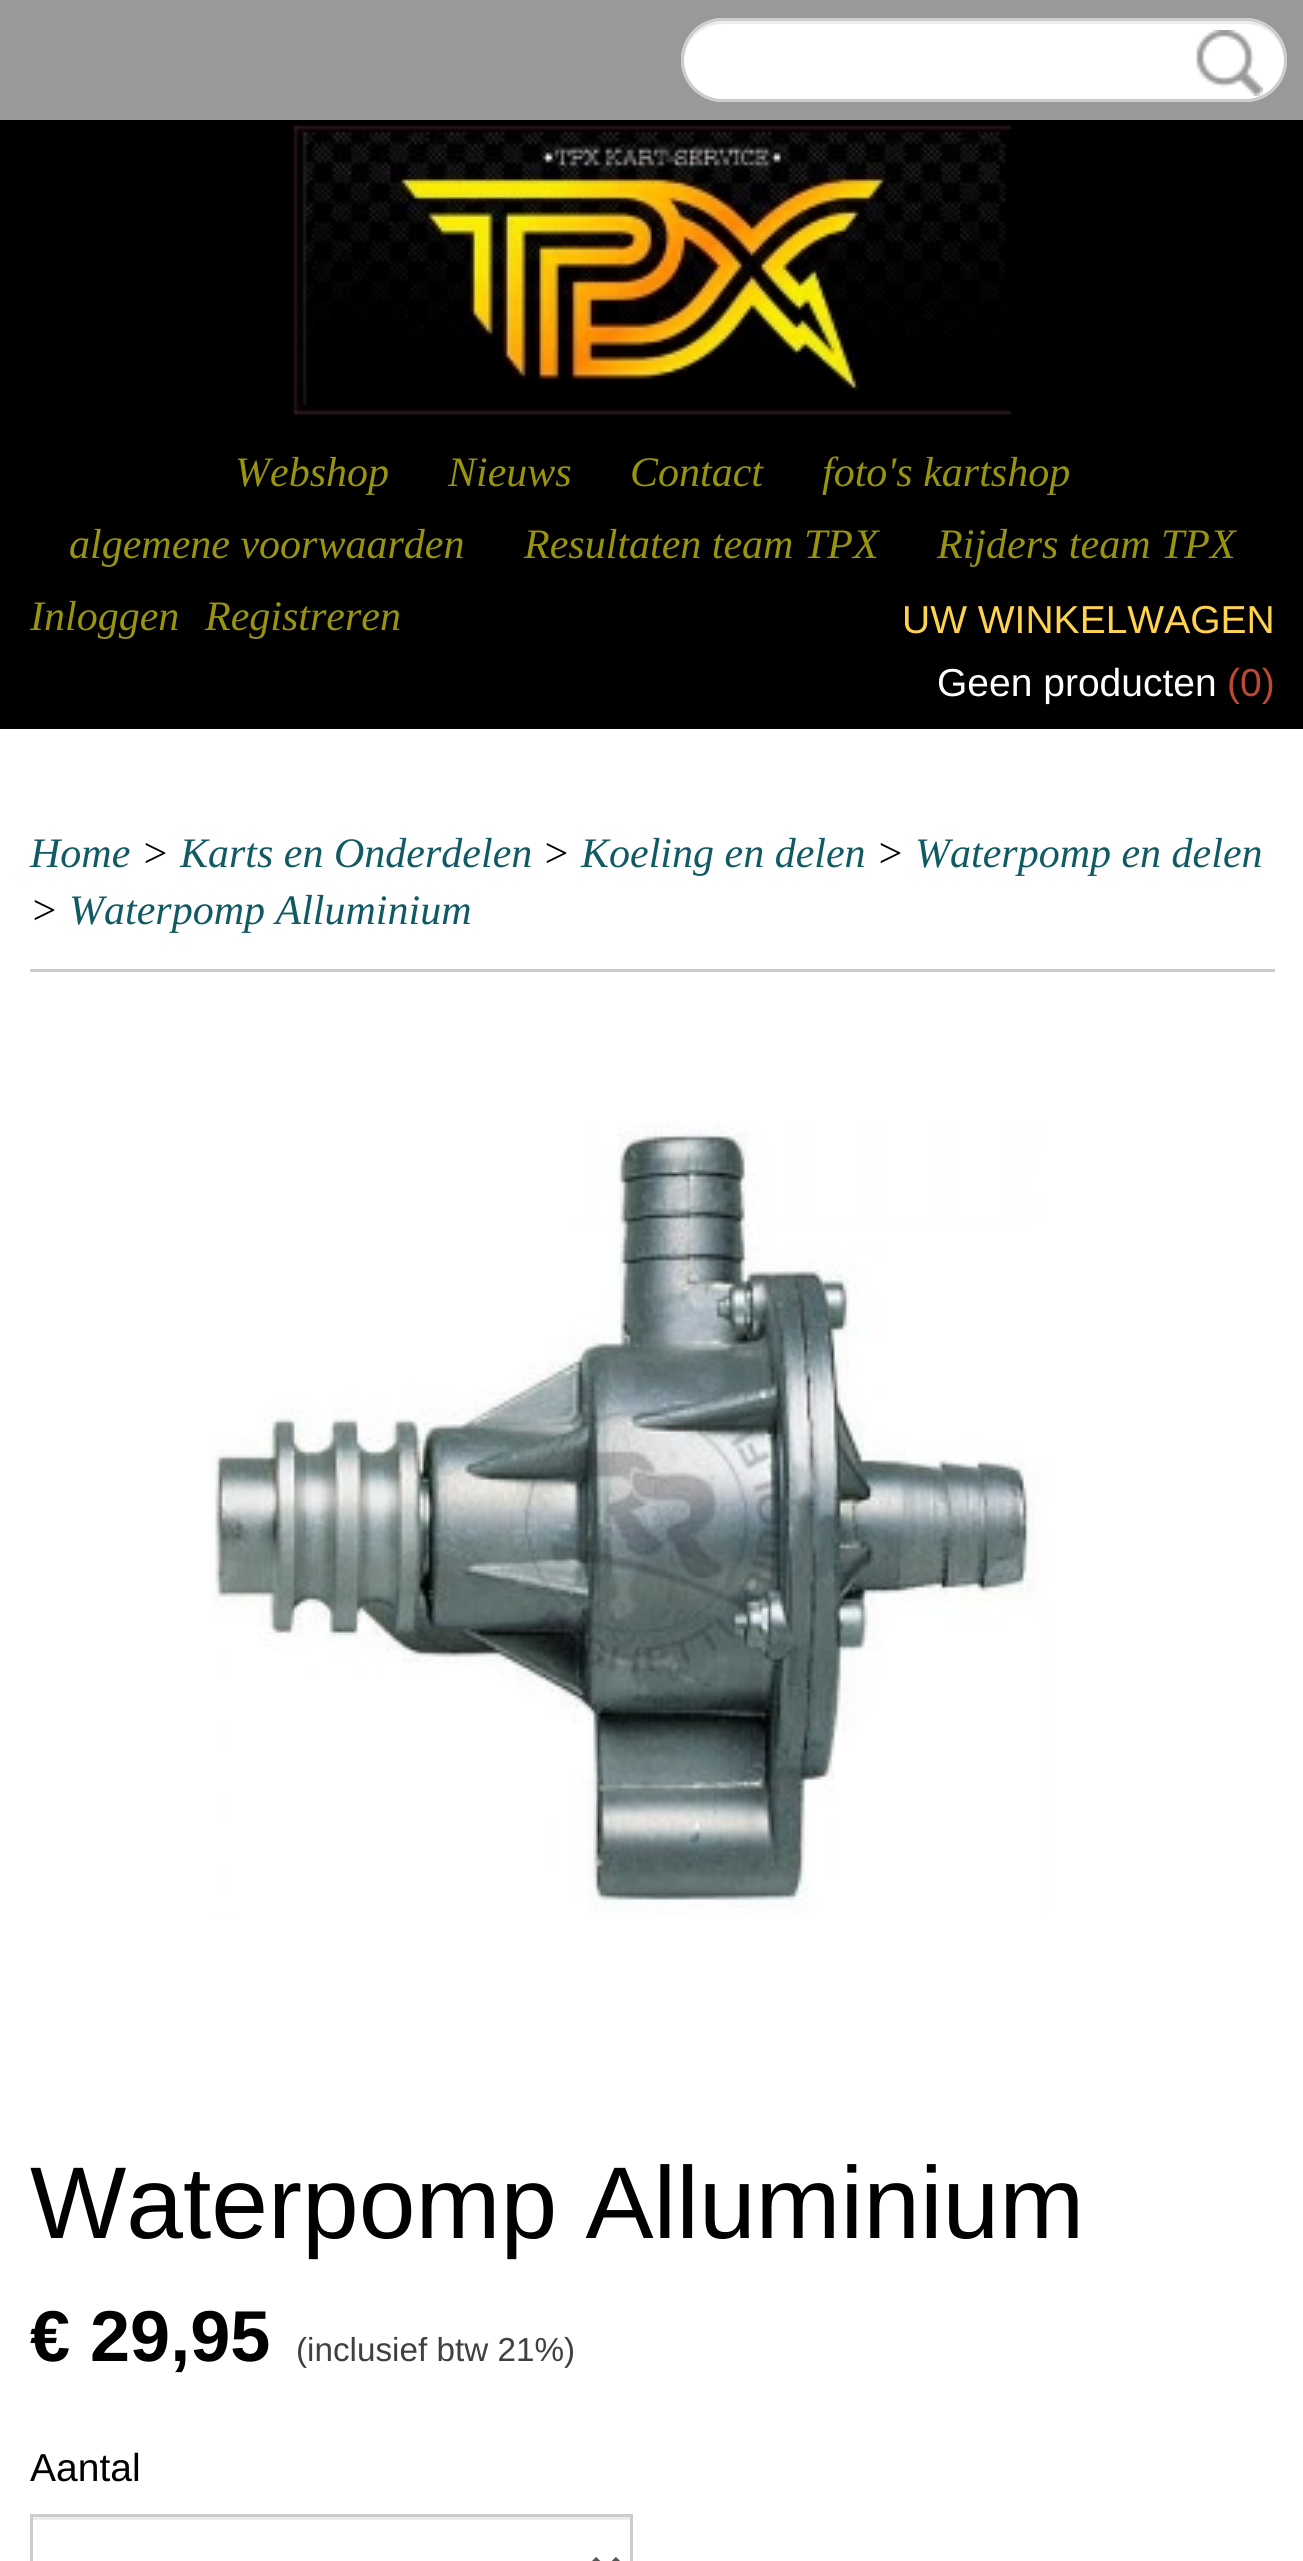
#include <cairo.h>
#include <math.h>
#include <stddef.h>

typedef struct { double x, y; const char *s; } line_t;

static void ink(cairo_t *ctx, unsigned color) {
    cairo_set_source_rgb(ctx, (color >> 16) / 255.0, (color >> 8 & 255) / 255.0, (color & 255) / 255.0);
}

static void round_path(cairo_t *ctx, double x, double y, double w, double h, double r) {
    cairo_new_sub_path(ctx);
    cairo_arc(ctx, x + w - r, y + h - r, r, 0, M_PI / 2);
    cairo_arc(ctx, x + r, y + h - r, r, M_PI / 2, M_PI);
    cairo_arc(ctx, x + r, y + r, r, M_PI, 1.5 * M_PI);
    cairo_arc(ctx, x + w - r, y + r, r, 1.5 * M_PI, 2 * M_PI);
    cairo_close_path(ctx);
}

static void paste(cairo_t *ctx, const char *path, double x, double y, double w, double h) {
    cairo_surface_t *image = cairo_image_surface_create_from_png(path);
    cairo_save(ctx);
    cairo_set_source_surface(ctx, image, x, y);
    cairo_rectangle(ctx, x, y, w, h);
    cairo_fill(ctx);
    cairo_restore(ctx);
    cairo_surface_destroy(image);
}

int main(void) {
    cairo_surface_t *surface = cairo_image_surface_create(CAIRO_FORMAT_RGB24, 1303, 2561);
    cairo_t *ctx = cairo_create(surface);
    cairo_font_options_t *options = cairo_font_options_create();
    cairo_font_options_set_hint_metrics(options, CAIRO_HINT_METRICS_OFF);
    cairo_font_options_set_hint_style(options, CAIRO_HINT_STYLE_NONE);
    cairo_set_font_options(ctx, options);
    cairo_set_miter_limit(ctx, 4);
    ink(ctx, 0xFFFFFF);
    cairo_paint(ctx);
    ink(ctx, 0x999999);
    cairo_rectangle(ctx, 0, 0, 1303, 120);
    cairo_fill(ctx);
    ink(ctx, 0xFFFFFF);
    round_path(ctx, 681, 18, 606, 84, 42);
    cairo_fill(ctx);
    ink(ctx, 0xECECEC);
    cairo_new_path(ctx);
    cairo_move_to(ctx, 723, 24);
    cairo_line_to(ctx, 1245, 24);
    cairo_curve_to(ctx, 1266, 24, 1283, 40, 1284, 61);
    cairo_curve_to(ctx, 1285, 40, 1267, 21, 1245, 21);
    cairo_line_to(ctx, 723, 21);
    cairo_curve_to(ctx, 701, 21, 683, 40, 684, 61);
    cairo_curve_to(ctx, 685, 40, 702, 24, 723, 24);
    cairo_close_path(ctx);
    cairo_fill(ctx);
    round_path(ctx, 682.5, 19.5, 603, 81, 40.5);
    ink(ctx, 0xCCCCCC);
    cairo_set_line_width(ctx, 3);
    cairo_stroke(ctx);
    paste(ctx, "media/1.png", 1196, 30, 67, 66);
    ink(ctx, 0x000000);
    cairo_rectangle(ctx, 0, 120, 1303, 609);
    cairo_fill(ctx);
    paste(ctx, "media/2.png", 293, 125, 719, 290);
    cairo_select_font_face(ctx, "Liberation Serif", CAIRO_FONT_SLANT_ITALIC, CAIRO_FONT_WEIGHT_NORMAL);
    cairo_set_font_size(ctx, 42);
    ink(ctx, 0x99940E);
    {
        static const line_t items[] = {
            {235, 486, "Webshop"},
            {448, 486, "Nieuws"},
            {630, 486, "Contact"},
            {822, 486, "foto's kartshop"},
            {69, 558, "algemene voorwaarden"},
            {524, 558, "Resultaten team TPX"},
            {937, 558, "Rijders team TPX"},
            {30, 630, "Inloggen"},
            {205, 630, "Registreren"},
        };
        for (size_t i = 0; i < sizeof items / sizeof *items; i++) {
            cairo_move_to(ctx, items[i].x, items[i].y);
            cairo_show_text(ctx, items[i].s);
        }
    }
    cairo_select_font_face(ctx, "Liberation Sans", CAIRO_FONT_SLANT_NORMAL, CAIRO_FONT_WEIGHT_NORMAL);
    cairo_set_font_size(ctx, 39);
    ink(ctx, 0xFFD34E);
    cairo_move_to(ctx, 902, 633);
    cairo_show_text(ctx, "UW WINKELWAGEN");
    ink(ctx, 0xFFFFFF);
    cairo_move_to(ctx, 937, 696);
    cairo_show_text(ctx, "Geen producten");
    ink(ctx, 0xBD4932);
    cairo_move_to(ctx, 1227, 696);
    cairo_show_text(ctx, "(0)");
    ink(ctx, 0xCCCCCC);
    cairo_rectangle(ctx, 30, 969, 1245, 3);
    cairo_fill(ctx);
    cairo_select_font_face(ctx, "Liberation Serif", CAIRO_FONT_SLANT_ITALIC, CAIRO_FONT_WEIGHT_NORMAL);
    cairo_set_font_size(ctx, 42);
    ink(ctx, 0x105B63);
    cairo_move_to(ctx, 30, 867);
    cairo_show_text(ctx, "Home");
    ink(ctx, 0x000000);
    cairo_move_to(ctx, 141, 867);
    cairo_show_text(ctx, ">");
    ink(ctx, 0x105B63);
    cairo_move_to(ctx, 180, 867);
    cairo_show_text(ctx, "Karts en Onderdelen");
    ink(ctx, 0x000000);
    cairo_move_to(ctx, 542, 867);
    cairo_show_text(ctx, ">");
    ink(ctx, 0x105B63);
    cairo_move_to(ctx, 581, 867);
    cairo_show_text(ctx, "Koeling en delen");
    ink(ctx, 0x000000);
    cairo_move_to(ctx, 876, 867);
    cairo_show_text(ctx, ">");
    ink(ctx, 0x105B63);
    cairo_move_to(ctx, 915, 867);
    cairo_show_text(ctx, "Waterpomp en delen");
    ink(ctx, 0x000000);
    cairo_move_to(ctx, 30, 924);
    cairo_show_text(ctx, ">");
    ink(ctx, 0x105B63);
    cairo_move_to(ctx, 69, 924);
    cairo_show_text(ctx, "Waterpomp Alluminium");
    paste(ctx, "media/3.png", 210, 1122, 839, 792);
    cairo_select_font_face(ctx, "Liberation Sans", CAIRO_FONT_SLANT_NORMAL, CAIRO_FONT_WEIGHT_NORMAL);
    cairo_set_font_size(ctx, 102);
    ink(ctx, 0x000000);
    cairo_move_to(ctx, 30, 2238);
    cairo_show_text(ctx, "Waterpomp Alluminium");
    cairo_select_font_face(ctx, "Liberation Sans", CAIRO_FONT_SLANT_NORMAL, CAIRO_FONT_WEIGHT_BOLD);
    cairo_set_font_size(ctx, 72);
    cairo_move_to(ctx, 30, 2361);
    cairo_show_text(ctx, "€ 29,95");
    cairo_select_font_face(ctx, "Liberation Sans", CAIRO_FONT_SLANT_NORMAL, CAIRO_FONT_WEIGHT_NORMAL);
    cairo_set_font_size(ctx, 33.25);
    ink(ctx, 0x404040);
    cairo_move_to(ctx, 296, 2361);
    cairo_show_text(ctx, "(inclusief btw 21%)");
    cairo_set_font_size(ctx, 39);
    ink(ctx, 0x000000);
    cairo_move_to(ctx, 30, 2481);
    cairo_show_text(ctx, "Aantal");
    ink(ctx, 0xECECEC);
    cairo_rectangle(ctx, 33, 2517, 597, 3);
    cairo_fill(ctx);
    cairo_rectangle(ctx, 31.5, 2515.5, 600, 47);
    ink(ctx, 0xCCCCCC);
    cairo_stroke(ctx);
    cairo_new_path(ctx);
    cairo_move_to(ctx, 594, 2559);
    cairo_line_to(ctx, 606, 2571);
    cairo_line_to(ctx, 618, 2559);
    ink(ctx, 0x555555);
    cairo_set_line_width(ctx, 6);
    cairo_stroke(ctx);
    cairo_surface_write_to_png(surface, "image.png");
    cairo_font_options_destroy(options);
    cairo_destroy(ctx);
    cairo_surface_destroy(surface);
    return 0;
}
